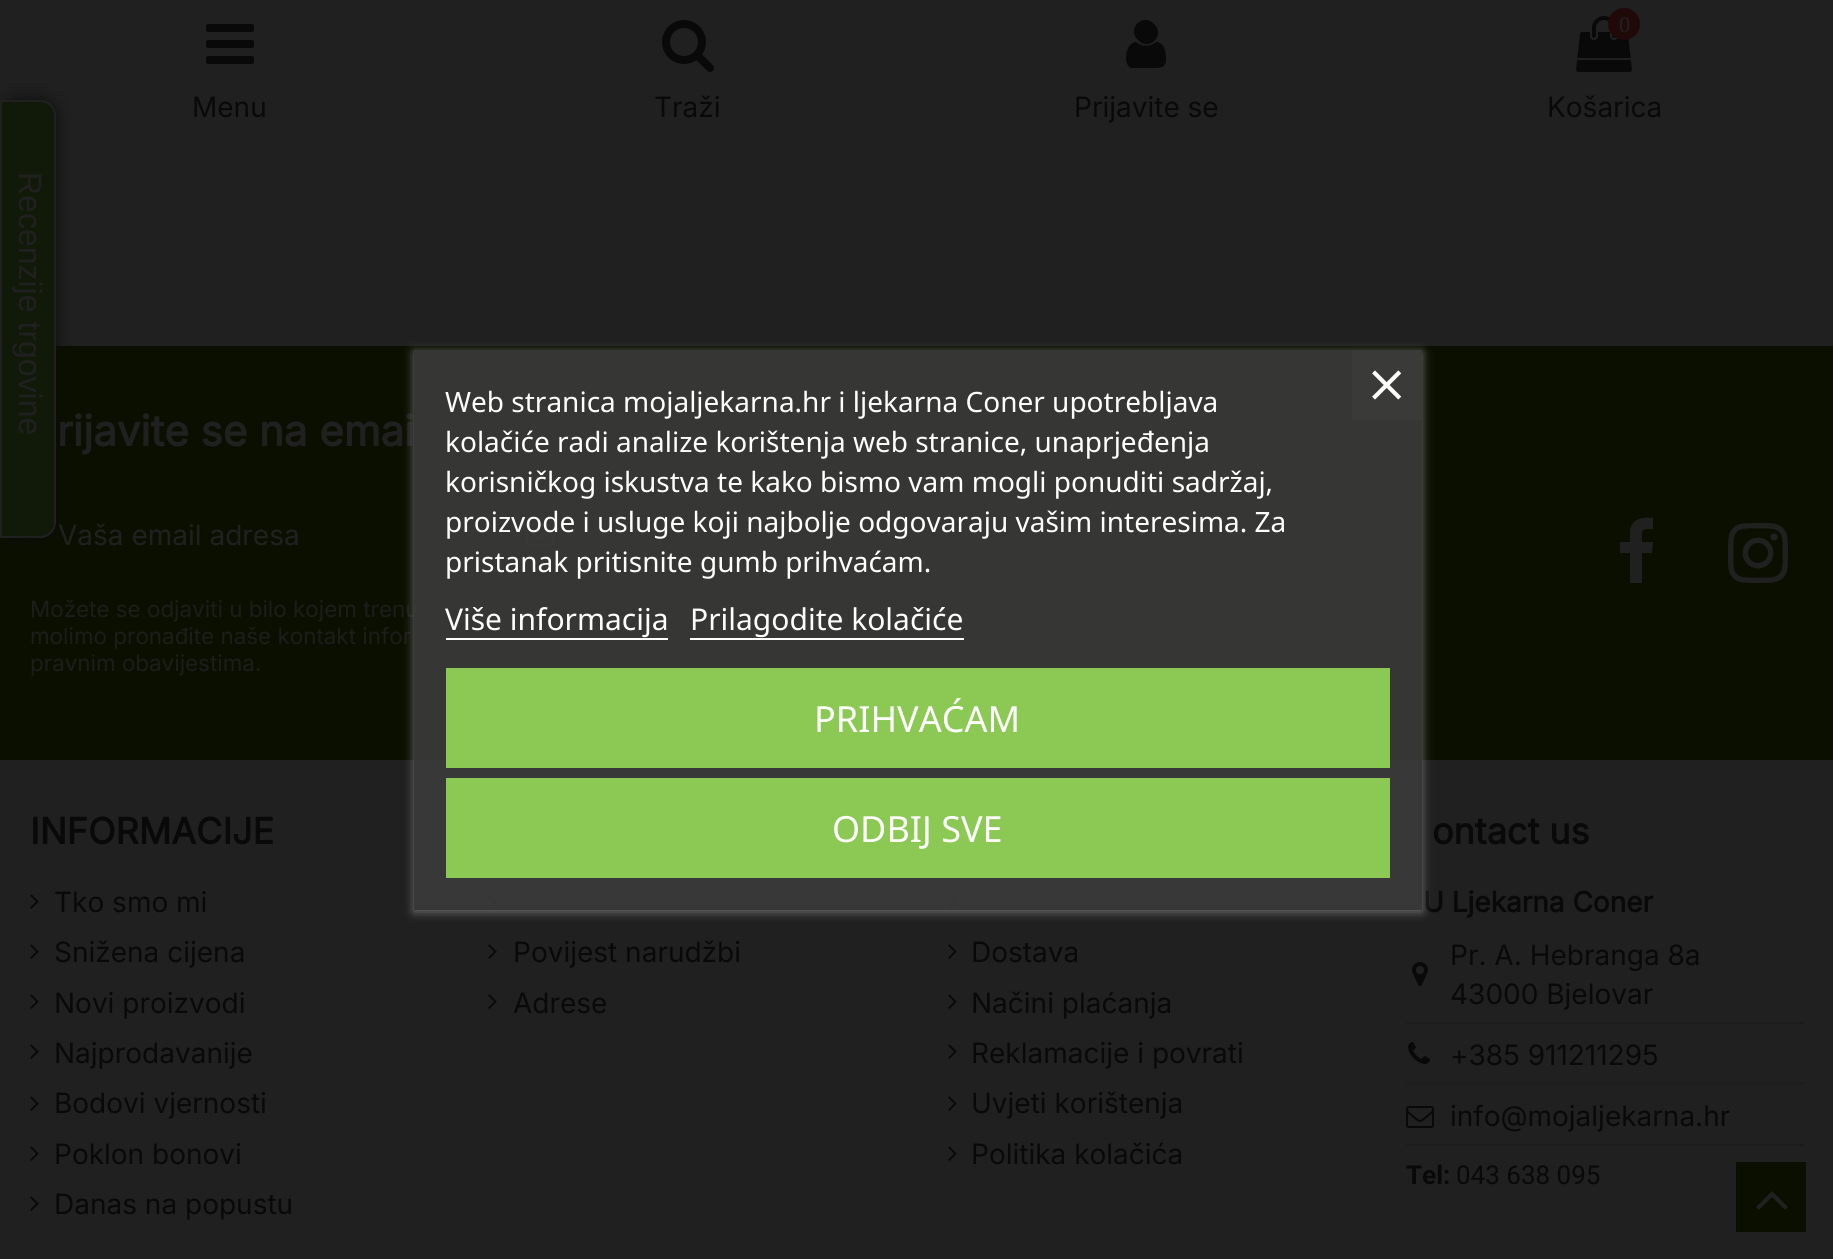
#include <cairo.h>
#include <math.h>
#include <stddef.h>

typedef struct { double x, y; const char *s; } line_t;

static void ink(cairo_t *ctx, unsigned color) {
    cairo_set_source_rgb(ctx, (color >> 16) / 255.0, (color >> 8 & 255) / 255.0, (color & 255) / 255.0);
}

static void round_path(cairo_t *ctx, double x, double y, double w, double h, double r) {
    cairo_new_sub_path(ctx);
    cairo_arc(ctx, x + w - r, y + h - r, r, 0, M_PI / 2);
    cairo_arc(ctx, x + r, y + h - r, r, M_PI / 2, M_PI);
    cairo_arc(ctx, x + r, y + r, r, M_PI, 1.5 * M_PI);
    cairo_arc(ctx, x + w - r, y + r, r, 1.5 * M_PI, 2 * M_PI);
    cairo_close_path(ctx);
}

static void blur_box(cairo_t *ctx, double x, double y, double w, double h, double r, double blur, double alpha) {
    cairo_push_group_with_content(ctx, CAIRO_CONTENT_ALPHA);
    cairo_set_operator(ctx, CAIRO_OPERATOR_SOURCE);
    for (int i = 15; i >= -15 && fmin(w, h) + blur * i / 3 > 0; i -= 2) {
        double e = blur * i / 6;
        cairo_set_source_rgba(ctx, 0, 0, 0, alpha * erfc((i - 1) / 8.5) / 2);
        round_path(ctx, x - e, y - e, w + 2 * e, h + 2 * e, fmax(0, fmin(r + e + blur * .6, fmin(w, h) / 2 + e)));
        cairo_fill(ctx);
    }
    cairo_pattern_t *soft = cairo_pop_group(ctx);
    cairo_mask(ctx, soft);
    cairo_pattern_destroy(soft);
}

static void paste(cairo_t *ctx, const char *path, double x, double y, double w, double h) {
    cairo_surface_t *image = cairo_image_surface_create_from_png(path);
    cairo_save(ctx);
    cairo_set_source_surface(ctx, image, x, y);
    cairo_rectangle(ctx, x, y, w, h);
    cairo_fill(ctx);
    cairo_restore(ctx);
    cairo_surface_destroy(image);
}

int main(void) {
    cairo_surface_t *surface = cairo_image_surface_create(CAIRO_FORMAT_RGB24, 1833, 1259);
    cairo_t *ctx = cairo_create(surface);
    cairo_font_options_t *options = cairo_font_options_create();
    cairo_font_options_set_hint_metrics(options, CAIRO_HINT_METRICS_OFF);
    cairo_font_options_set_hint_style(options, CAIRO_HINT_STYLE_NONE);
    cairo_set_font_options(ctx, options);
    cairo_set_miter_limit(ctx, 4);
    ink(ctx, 0x202020);
    cairo_paint(ctx);
    paste(ctx, "media/1.png", 206, 24, 48, 40);
    cairo_select_font_face(ctx, "Inter", CAIRO_FONT_SLANT_NORMAL, CAIRO_FONT_WEIGHT_NORMAL);
    cairo_set_font_size(ctx, 28);
    ink(ctx, 0x090909);
    cairo_move_to(ctx, 192, 117);
    cairo_show_text(ctx, "Menu");
    paste(ctx, "media/2.png", 662, 20, 52, 52);
    cairo_move_to(ctx, 654, 117);
    cairo_show_text(ctx, "Traži");
    cairo_new_path(ctx);
    cairo_move_to(ctx, 1166, 60);
    cairo_curve_to(ctx, 1166, 67, 1161, 68, 1155, 68);
    cairo_line_to(ctx, 1131, 68);
    cairo_curve_to(ctx, 1122, 64, 1126, 42, 1136, 42);
    cairo_curve_to(ctx, 1142, 47, 1150, 47, 1156, 42);
    cairo_curve_to(ctx, 1165, 42, 1166, 53, 1166, 60);
    cairo_close_path(ctx);
    cairo_move_to(ctx, 1154, 24);
    cairo_curve_to(ctx, 1166, 35, 1149, 52, 1138, 40);
    cairo_curve_to(ctx, 1126, 29, 1143, 12, 1154, 24);
    cairo_close_path(ctx);
    cairo_fill(ctx);
    cairo_move_to(ctx, 1074, 117);
    cairo_show_text(ctx, "Prijavite se");
    paste(ctx, "media/3.png", 1576, 16, 56, 56);
    ink(ctx, 0x200909);
    cairo_arc(ctx, 1624, 24, 16, 0, 2 * M_PI);
    cairo_fill(ctx);
    cairo_select_font_face(ctx, "Liberation Serif", CAIRO_FONT_SLANT_NORMAL, CAIRO_FONT_WEIGHT_NORMAL);
    cairo_set_font_size(ctx, 22.4);
    ink(ctx, 0x202020);
    cairo_move_to(ctx, 1619, 32);
    cairo_show_text(ctx, "0");
    cairo_select_font_face(ctx, "Inter", CAIRO_FONT_SLANT_NORMAL, CAIRO_FONT_WEIGHT_NORMAL);
    cairo_set_font_size(ctx, 28);
    ink(ctx, 0x090909);
    cairo_move_to(ctx, 1547, 117);
    cairo_show_text(ctx, "Košarica");
    ink(ctx, 0x0B0F00);
    cairo_rectangle(ctx, 0, 346, 1833, 414);
    cairo_fill(ctx);
    ink(ctx, 0x0A0B0C);
    blur_box(ctx, 0, 100, 56, 438, 16, 8, 1);
    ink(ctx, 0x111909);
    cairo_new_path(ctx);
    cairo_move_to(ctx, 1, 101);
    cairo_line_to(ctx, 40, 101);
    cairo_curve_to(ctx, 48.5, 101, 55, 107.5, 55, 116);
    cairo_line_to(ctx, 55, 522);
    cairo_curve_to(ctx, 55, 530.5, 48.5, 537, 40, 537);
    cairo_line_to(ctx, 1, 537);
    cairo_close_path(ctx);
    cairo_fill_preserve(ctx);
    ink(ctx, 0x202020);
    cairo_stroke(ctx);
    cairo_select_font_face(ctx, "Liberation Sans", CAIRO_FONT_SLANT_NORMAL, CAIRO_FONT_WEIGHT_NORMAL);
    cairo_set_font_size(ctx, 32);
    cairo_save(ctx);
    cairo_translate(ctx, 19, 172);
    cairo_rotate(ctx, 90 * M_PI / 180);
    cairo_move_to(ctx, 0, 0);
    cairo_show_text(ctx, "Recenzije trgovine");
    cairo_restore(ctx);
    cairo_select_font_face(ctx, "Inter", CAIRO_FONT_SLANT_NORMAL, CAIRO_FONT_WEIGHT_BOLD);
    cairo_set_font_size(ctx, 36);
    ink(ctx, 0x090909);
    cairo_move_to(ctx, 30, 844);
    cairo_show_text(ctx, "INFORMACIJE");
    paste(ctx, "media/4.png", 30, 894, 9, 15);
    cairo_select_font_face(ctx, "Inter", CAIRO_FONT_SLANT_NORMAL, CAIRO_FONT_WEIGHT_NORMAL);
    cairo_set_font_size(ctx, 28);
    cairo_move_to(ctx, 54, 912);
    cairo_show_text(ctx, "Tko smo mi");
    paste(ctx, "media/4.png", 30, 944, 9, 15);
    cairo_move_to(ctx, 54, 962);
    cairo_show_text(ctx, "Snižena cijena");
    paste(ctx, "media/4.png", 30, 994, 9, 15);
    cairo_move_to(ctx, 54, 1013);
    cairo_show_text(ctx, "Novi proizvodi");
    paste(ctx, "media/4.png", 30, 1044, 9, 15);
    cairo_move_to(ctx, 54, 1063);
    cairo_show_text(ctx, "Najprodavanije");
    paste(ctx, "media/4.png", 30, 1096, 9, 15);
    cairo_move_to(ctx, 54, 1113);
    cairo_show_text(ctx, "Bodovi vjernosti");
    paste(ctx, "media/4.png", 30, 1146, 9, 15);
    cairo_move_to(ctx, 54, 1164);
    cairo_show_text(ctx, "Poklon bonovi");
    paste(ctx, "media/4.png", 30, 1196, 9, 15);
    cairo_move_to(ctx, 54, 1214);
    cairo_show_text(ctx, "Danas na popustu");
    paste(ctx, "media/4.png", 488, 894, 9, 15);
    paste(ctx, "media/4.png", 488, 944, 9, 15);
    cairo_move_to(ctx, 513, 962);
    cairo_show_text(ctx, "Povijest narudžbi");
    paste(ctx, "media/4.png", 488, 994, 9, 15);
    cairo_move_to(ctx, 513, 1013);
    cairo_show_text(ctx, "Adrese");
    paste(ctx, "media/4.png", 948, 894, 9, 15);
    paste(ctx, "media/4.png", 948, 944, 9, 15);
    cairo_move_to(ctx, 971, 962);
    cairo_show_text(ctx, "Dostava");
    paste(ctx, "media/4.png", 948, 994, 9, 15);
    cairo_move_to(ctx, 971, 1013);
    cairo_show_text(ctx, "Načini plaćanja");
    paste(ctx, "media/4.png", 948, 1044, 9, 15);
    cairo_move_to(ctx, 971, 1063);
    cairo_show_text(ctx, "Reklamacije i povrati");
    paste(ctx, "media/4.png", 948, 1096, 9, 15);
    cairo_move_to(ctx, 971, 1113);
    cairo_show_text(ctx, "Uvjeti korištenja");
    paste(ctx, "media/4.png", 948, 1146, 9, 15);
    cairo_move_to(ctx, 971, 1164);
    cairo_show_text(ctx, "Politika kolačića");
    cairo_select_font_face(ctx, "Inter", CAIRO_FONT_SLANT_NORMAL, CAIRO_FONT_WEIGHT_BOLD);
    cairo_set_font_size(ctx, 36);
    cairo_move_to(ctx, 1432, 844);
    cairo_show_text(ctx, "ontact us");
    cairo_set_font_size(ctx, 28);
    cairo_move_to(ctx, 1423, 912);
    cairo_show_text(ctx, "U Ljekarna Coner");
    paste(ctx, "media/5.png", 1412, 962, 16, 24);
    cairo_select_font_face(ctx, "Inter", CAIRO_FONT_SLANT_NORMAL, CAIRO_FONT_WEIGHT_NORMAL);
    cairo_move_to(ctx, 1450, 965);
    cairo_show_text(ctx, "Pr. A. Hebranga 8a");
    cairo_move_to(ctx, 1450, 1004);
    cairo_show_text(ctx, "43000 Bjelovar");
    ink(ctx, 0x1D1D1D);
    cairo_rectangle(ctx, 1406, 1022, 398, 2);
    cairo_fill(ctx);
    paste(ctx, "media/6.png", 1408, 1042, 22, 22);
    ink(ctx, 0x090909);
    cairo_move_to(ctx, 1450, 1065);
    cairo_show_text(ctx, "+385 911211295");
    ink(ctx, 0x1D1D1D);
    cairo_rectangle(ctx, 1406, 1082, 398, 2);
    cairo_fill(ctx);
    paste(ctx, "media/7.png", 1406, 1106, 28, 22);
    ink(ctx, 0x090909);
    cairo_move_to(ctx, 1450, 1126);
    cairo_show_text(ctx, "info@mojaljekarna.hr");
    ink(ctx, 0x1D1D1D);
    cairo_rectangle(ctx, 1406, 1144, 398, 2);
    cairo_fill(ctx);
    cairo_select_font_face(ctx, "Roboto", CAIRO_FONT_SLANT_NORMAL, CAIRO_FONT_WEIGHT_BOLD);
    cairo_set_font_size(ctx, 26);
    ink(ctx, 0x090909);
    cairo_move_to(ctx, 1406, 1184);
    cairo_show_text(ctx, "Tel:");
    cairo_select_font_face(ctx, "Roboto", CAIRO_FONT_SLANT_NORMAL, CAIRO_FONT_WEIGHT_NORMAL);
    cairo_move_to(ctx, 1456, 1184);
    cairo_show_text(ctx, "043 638 095");
    cairo_select_font_face(ctx, "Inter", CAIRO_FONT_SLANT_NORMAL, CAIRO_FONT_WEIGHT_BOLD);
    cairo_set_font_size(ctx, 42);
    ink(ctx, 0x202020);
    cairo_move_to(ctx, 57, 446);
    cairo_show_text(ctx, "rijavite se na emai");
    cairo_select_font_face(ctx, "Inter", CAIRO_FONT_SLANT_NORMAL, CAIRO_FONT_WEIGHT_NORMAL);
    cairo_set_font_size(ctx, 28);
    cairo_move_to(ctx, 58, 545);
    cairo_show_text(ctx, "Vaša email adresa");
    paste(ctx, "media/8.png", 526, 524, 28, 22);
    cairo_set_font_size(ctx, 22.4);
    ink(ctx, 0x1C1D1A);
    {
        static const line_t items[] = {
            {30, 617, "Možete se odjaviti u bilo kojem trenu"},
            {30, 644, "molimo pronađite naše kontakt infor"},
            {30, 671, "pravnim obavijestima."},
        };
        for (size_t i = 0; i < sizeof items / sizeof *items; i++) {
            cairo_move_to(ctx, items[i].x, items[i].y);
            cairo_show_text(ctx, items[i].s);
        }
    }
    ink(ctx, 0x202020);
    cairo_new_path(ctx);
    cairo_move_to(ctx, 1653, 518);
    cairo_line_to(ctx, 1653, 529);
    cairo_curve_to(ctx, 1640, 529, 1642, 529, 1642, 542);
    cairo_line_to(ctx, 1653, 542);
    cairo_line_to(ctx, 1652, 553);
    cairo_line_to(ctx, 1642, 553);
    cairo_line_to(ctx, 1642, 583);
    cairo_line_to(ctx, 1630, 583);
    cairo_line_to(ctx, 1630, 553);
    cairo_line_to(ctx, 1620, 553);
    cairo_line_to(ctx, 1620, 542);
    cairo_line_to(ctx, 1630, 542);
    cairo_line_to(ctx, 1630, 530);
    cairo_curve_to(ctx, 1632, 518, 1644, 517, 1653, 518);
    cairo_close_path(ctx);
    cairo_fill(ctx);
    paste(ctx, "media/9.png", 1728, 523, 60, 60);
    cairo_save(ctx);
    cairo_set_fill_rule(ctx, CAIRO_FILL_RULE_EVEN_ODD);
    cairo_new_path(ctx);
    cairo_move_to(ctx, 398, 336);
    cairo_line_to(ctx, 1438, 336);
    cairo_line_to(ctx, 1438, 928);
    cairo_line_to(ctx, 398, 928);
    cairo_close_path(ctx);
    cairo_move_to(ctx, 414, 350);
    cairo_line_to(ctx, 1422, 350);
    cairo_line_to(ctx, 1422, 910);
    cairo_line_to(ctx, 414, 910);
    cairo_close_path(ctx);
    cairo_clip(ctx);
    ink(ctx, 0x707070);
    blur_box(ctx, 414, 352, 1008, 560, 0, 5, 1);
    cairo_restore(ctx);
    cairo_set_source_rgba(ctx, 0.231, 0.231, 0.231, 0.9);
    cairo_rectangle(ctx, 414, 350, 1008, 560);
    cairo_fill(ctx);
    cairo_select_font_face(ctx, "Noto Sans", CAIRO_FONT_SLANT_NORMAL, CAIRO_FONT_WEIGHT_NORMAL);
    cairo_set_font_size(ctx, 28);
    ink(ctx, 0xFFFFFF);
    {
        static const line_t items[] = {
            {445, 412, "Web stranica mojaljekarna.hr i ljekarna Coner upotrebljava"},
            {445, 452, "kolačiće radi analize korištenja web stranice, unaprjeđenja"},
            {445, 492, "korisničkog iskustva te kako bismo vam mogli ponuditi sadržaj,"},
            {445, 532, "proizvode i usluge koji najbolje odgovaraju vašim interesima. Za"},
            {445, 572, "pristanak pritisnite gumb prihvaćam."},
        };
        for (size_t i = 0; i < sizeof items / sizeof *items; i++) {
            cairo_move_to(ctx, items[i].x, items[i].y);
            cairo_show_text(ctx, items[i].s);
        }
    }
    cairo_set_font_size(ctx, 30);
    cairo_move_to(ctx, 445, 630);
    cairo_show_text(ctx, "Više informacija");
    cairo_rectangle(ctx, 446, 638, 222, 2);
    cairo_fill(ctx);
    cairo_move_to(ctx, 690, 630);
    cairo_show_text(ctx, "Prilagodite kolačiće");
    cairo_rectangle(ctx, 690, 638, 274, 2);
    cairo_fill(ctx);
    ink(ctx, 0x8BC954);
    cairo_rectangle(ctx, 446, 668, 944, 100);
    cairo_fill(ctx);
    cairo_set_font_size(ctx, 36);
    ink(ctx, 0xFFFFFF);
    cairo_move_to(ctx, 814, 732);
    cairo_show_text(ctx, "PRIHVAĆAM");
    ink(ctx, 0x8BC954);
    cairo_rectangle(ctx, 446, 778, 944, 100);
    cairo_fill(ctx);
    ink(ctx, 0xFFFFFF);
    cairo_move_to(ctx, 832, 842);
    cairo_show_text(ctx, "ODBIJ SVE");
    ink(ctx, 0x3A3A39);
    cairo_rectangle(ctx, 1352, 350, 70, 70);
    cairo_fill(ctx);
    paste(ctx, "media/10.png", 1372, 370, 30, 30);
    ink(ctx, 0x0B0F00);
    cairo_rectangle(ctx, 1736, 1162, 70, 70);
    cairo_fill(ctx);
    paste(ctx, "media/11.png", 1756, 1191, 32, 19);
    cairo_surface_write_to_png(surface, "image.png");
    cairo_font_options_destroy(options);
    cairo_destroy(ctx);
    cairo_surface_destroy(surface);
    return 0;
}
